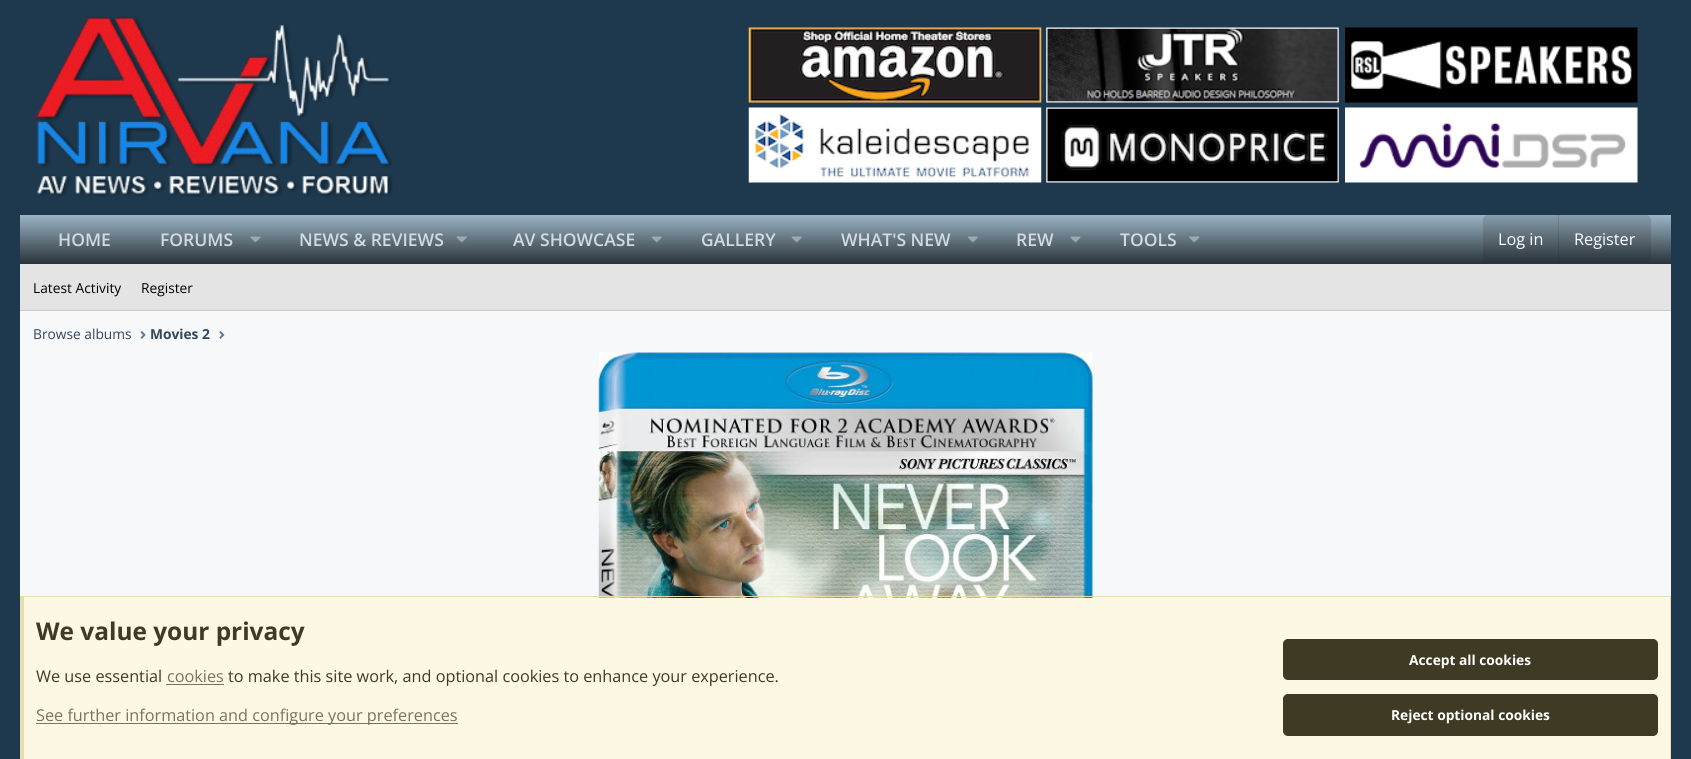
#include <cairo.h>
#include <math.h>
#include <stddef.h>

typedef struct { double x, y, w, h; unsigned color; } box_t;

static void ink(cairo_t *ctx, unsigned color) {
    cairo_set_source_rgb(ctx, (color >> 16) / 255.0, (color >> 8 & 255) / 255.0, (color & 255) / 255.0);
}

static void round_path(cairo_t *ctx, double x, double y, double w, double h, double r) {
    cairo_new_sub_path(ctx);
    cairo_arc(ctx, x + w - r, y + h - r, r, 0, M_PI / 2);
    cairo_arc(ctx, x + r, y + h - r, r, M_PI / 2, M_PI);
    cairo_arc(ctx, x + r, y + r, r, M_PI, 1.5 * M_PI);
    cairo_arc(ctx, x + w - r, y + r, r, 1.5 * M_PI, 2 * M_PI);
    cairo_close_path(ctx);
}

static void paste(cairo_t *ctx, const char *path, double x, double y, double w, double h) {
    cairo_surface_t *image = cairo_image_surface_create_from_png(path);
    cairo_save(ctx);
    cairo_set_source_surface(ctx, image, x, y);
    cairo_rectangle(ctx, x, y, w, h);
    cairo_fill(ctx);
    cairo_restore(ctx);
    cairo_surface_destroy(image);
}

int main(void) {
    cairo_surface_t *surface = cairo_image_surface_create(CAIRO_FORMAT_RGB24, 1691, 759);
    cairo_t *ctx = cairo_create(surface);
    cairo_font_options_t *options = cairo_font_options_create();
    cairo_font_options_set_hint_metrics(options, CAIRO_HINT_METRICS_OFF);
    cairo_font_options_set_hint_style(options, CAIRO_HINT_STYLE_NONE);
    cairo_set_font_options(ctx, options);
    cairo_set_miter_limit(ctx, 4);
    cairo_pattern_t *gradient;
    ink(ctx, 0x1E394E);
    cairo_paint(ctx);
    paste(ctx, "media/1.png", 36, 16, 357, 181);
    paste(ctx, "media/2.png", 748, 27, 294, 76);
    paste(ctx, "media/3.png", 1046, 27, 293, 76);
    paste(ctx, "media/4.png", 1345, 27, 293, 76);
    paste(ctx, "media/5.png", 748, 107, 294, 76);
    paste(ctx, "media/6.png", 1046, 107, 293, 76);
    paste(ctx, "media/7.png", 1345, 107, 293, 76);
    gradient = cairo_pattern_create_linear(846, 215, 846, 264);
    cairo_pattern_add_color_stop_rgba(gradient, 0, 0.608, 0.706, 0.773, 1);
    cairo_pattern_add_color_stop_rgba(gradient, 1, 0.161, 0.2, 0.224, 1);
    cairo_set_source(ctx, gradient);
    cairo_pattern_destroy(gradient);
    cairo_rectangle(ctx, 20, 215, 1651, 49);
    cairo_fill(ctx);
    cairo_select_font_face(ctx, "Open Sans SemiBold", CAIRO_FONT_SLANT_NORMAL, CAIRO_FONT_WEIGHT_NORMAL);
    cairo_set_font_size(ctx, 17.5);
    ink(ctx, 0xD4DAE0);
    cairo_move_to(ctx, 58, 246);
    cairo_show_text(ctx, "HOME");
    cairo_move_to(ctx, 160, 246);
    cairo_show_text(ctx, "FORUMS");
    paste(ctx, "media/8.png", 250, 236, 11, 7);
    cairo_move_to(ctx, 299, 246);
    cairo_show_text(ctx, "NEWS & REVIEWS");
    paste(ctx, "media/9.png", 456, 236, 11, 7);
    cairo_move_to(ctx, 513, 246);
    cairo_show_text(ctx, "AV SHOWCASE");
    paste(ctx, "media/9.png", 651, 236, 11, 7);
    cairo_move_to(ctx, 701, 246);
    cairo_show_text(ctx, "GALLERY");
    paste(ctx, "media/9.png", 791, 236, 11, 7);
    cairo_move_to(ctx, 841, 246);
    cairo_show_text(ctx, "WHAT'S NEW");
    paste(ctx, "media/10.png", 968, 236, 10, 7);
    cairo_move_to(ctx, 1016, 246);
    cairo_show_text(ctx, "REW");
    paste(ctx, "media/8.png", 1070, 236, 11, 7);
    cairo_move_to(ctx, 1120, 246);
    cairo_show_text(ctx, "TOOLS");
    paste(ctx, "media/11.png", 1189, 236, 11, 7);
    cairo_set_source_rgba(ctx, 0.114, 0.114, 0.114, 0.15);
    cairo_new_path(ctx);
    cairo_move_to(ctx, 1488, 215);
    cairo_line_to(ctx, 1646, 215);
    cairo_curve_to(ctx, 1649, 215, 1651, 217, 1651, 220);
    cairo_line_to(ctx, 1651, 263);
    cairo_line_to(ctx, 1483, 263);
    cairo_line_to(ctx, 1483, 220);
    cairo_curve_to(ctx, 1483, 217, 1485, 215, 1488, 215);
    cairo_close_path(ctx);
    cairo_fill(ctx);
    cairo_select_font_face(ctx, "Open Sans", CAIRO_FONT_SLANT_NORMAL, CAIRO_FONT_WEIGHT_NORMAL);
    cairo_set_font_size(ctx, 16.25);
    ink(ctx, 0xFFFFFF);
    cairo_move_to(ctx, 1498, 245);
    cairo_show_text(ctx, "Log in");
    cairo_set_source_rgba(ctx, 0.114, 0.114, 0.114, 0.15);
    cairo_rectangle(ctx, 1558, 215, 1, 48);
    cairo_fill(ctx);
    ink(ctx, 0xFFFFFF);
    cairo_move_to(ctx, 1574, 245);
    cairo_show_text(ctx, "Register");
    ink(ctx, 0xE4E4E4);
    cairo_rectangle(ctx, 20, 264, 1651, 46);
    cairo_fill(ctx);
    ink(ctx, 0xCBCBCB);
    cairo_rectangle(ctx, 20, 310, 1651, 1);
    cairo_fill(ctx);
    cairo_set_font_size(ctx, 13.75);
    ink(ctx, 0x000000);
    cairo_move_to(ctx, 33, 293);
    cairo_show_text(ctx, "Latest Activity");
    cairo_move_to(ctx, 141, 293);
    cairo_show_text(ctx, "Register");
    ink(ctx, 0xF6F8F9);
    cairo_rectangle(ctx, 20, 311, 1651, 287);
    cairo_fill(ctx);
    ink(ctx, 0x33475B);
    cairo_move_to(ctx, 33, 339);
    cairo_show_text(ctx, "Browse albums");
    paste(ctx, "media/12.png", 140, 331, 6, 8);
    cairo_select_font_face(ctx, "Open Sans", CAIRO_FONT_SLANT_NORMAL, CAIRO_FONT_WEIGHT_BOLD);
    cairo_move_to(ctx, 150, 339);
    cairo_show_text(ctx, "Movies 2");
    paste(ctx, "media/13.png", 219, 331, 6, 8);
    paste(ctx, "media/14.png", 598, 352, 495, 246);
    {
        static const box_t items[] = {
            {24, 598, 1646, 161, 0xFCF8E3},
            {20, 596, 1651, 1, 0xE6DDB0},
            {1670, 596, 1, 163, 0xE6DDB0},
            {20, 596, 4, 163, 0xE6DDB0},
        };
        for (size_t i = 0; i < sizeof items / sizeof *items; i++) {
            ink(ctx, items[i].color);
            cairo_rectangle(ctx, items[i].x, items[i].y, items[i].w, items[i].h);
            cairo_fill(ctx);
        }
    }
    cairo_set_font_size(ctx, 24.4);
    ink(ctx, 0x3F3A23);
    cairo_move_to(ctx, 36, 640);
    cairo_show_text(ctx, "We value your privacy");
    cairo_select_font_face(ctx, "Open Sans", CAIRO_FONT_SLANT_NORMAL, CAIRO_FONT_WEIGHT_NORMAL);
    cairo_set_font_size(ctx, 16.25);
    cairo_move_to(ctx, 36, 682);
    cairo_show_text(ctx, "We use essential");
    ink(ctx, 0x78735D);
    cairo_move_to(ctx, 167, 682);
    cairo_show_text(ctx, "cookies");
    cairo_rectangle(ctx, 166, 684, 58, 1);
    cairo_fill(ctx);
    ink(ctx, 0x3F3A23);
    cairo_move_to(ctx, 228, 682);
    cairo_show_text(ctx, "to make this site work, and optional cookies to enhance your experience.");
    ink(ctx, 0x78735D);
    cairo_rectangle(ctx, 36, 723, 422, 1);
    cairo_fill(ctx);
    cairo_move_to(ctx, 36, 721);
    cairo_show_text(ctx, "See further information and configure your preferences");
    ink(ctx, 0x3F3A23);
    round_path(ctx, 1283.5, 639.5, 374, 40, 4.5);
    cairo_fill_preserve(ctx);
    cairo_set_line_width(ctx, 1);
    cairo_stroke(ctx);
    cairo_select_font_face(ctx, "Open Sans", CAIRO_FONT_SLANT_NORMAL, CAIRO_FONT_WEIGHT_BOLD);
    cairo_set_font_size(ctx, 13.75);
    ink(ctx, 0xFFFFFF);
    cairo_move_to(ctx, 1409, 665);
    cairo_show_text(ctx, "Accept all cookies");
    ink(ctx, 0x3F3A23);
    round_path(ctx, 1283.5, 694.5, 374, 41, 4.5);
    cairo_fill_preserve(ctx);
    cairo_stroke(ctx);
    ink(ctx, 0xFFFFFF);
    cairo_move_to(ctx, 1391, 720);
    cairo_show_text(ctx, "Reject optional cookies");
    cairo_surface_write_to_png(surface, "image.png");
    cairo_font_options_destroy(options);
    cairo_destroy(ctx);
    cairo_surface_destroy(surface);
    return 0;
}
